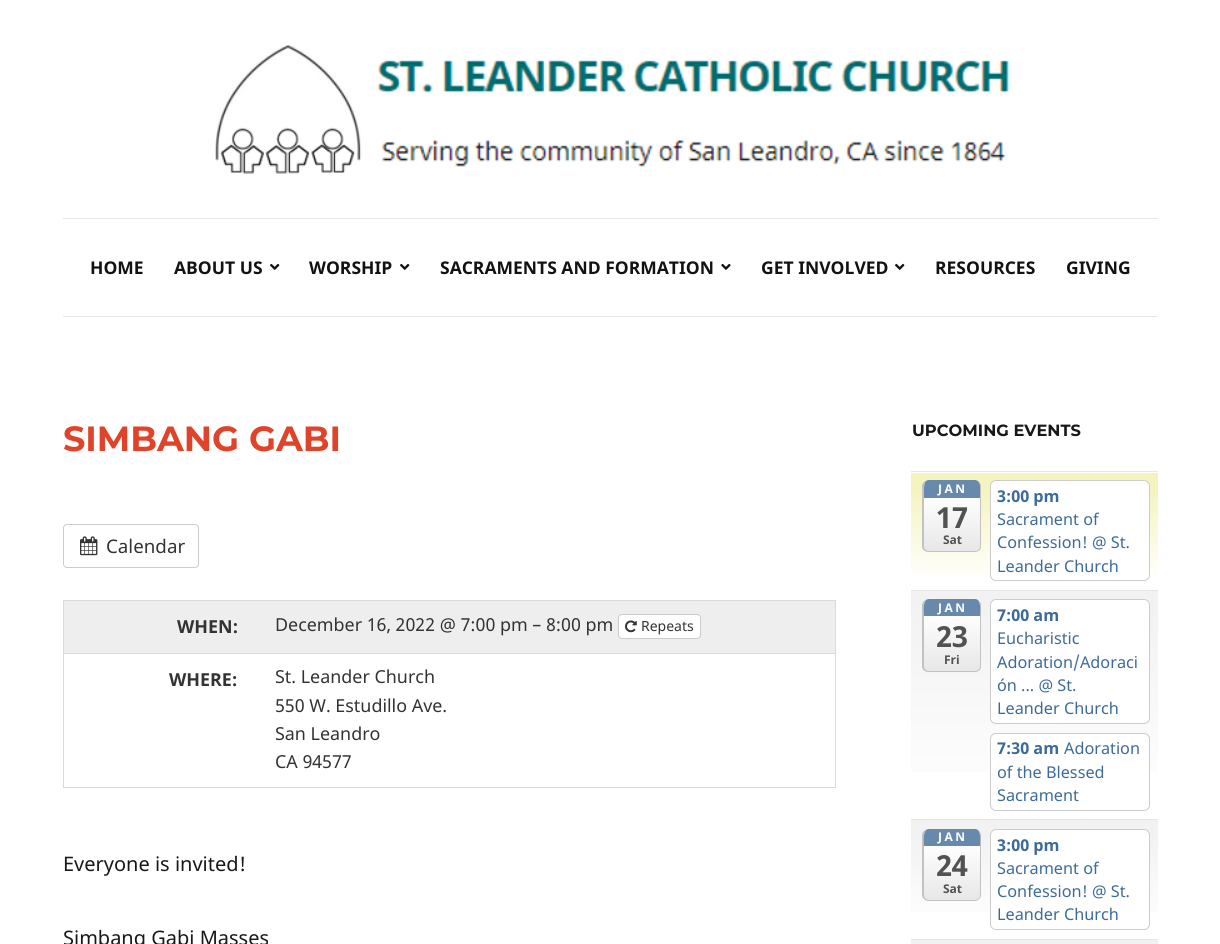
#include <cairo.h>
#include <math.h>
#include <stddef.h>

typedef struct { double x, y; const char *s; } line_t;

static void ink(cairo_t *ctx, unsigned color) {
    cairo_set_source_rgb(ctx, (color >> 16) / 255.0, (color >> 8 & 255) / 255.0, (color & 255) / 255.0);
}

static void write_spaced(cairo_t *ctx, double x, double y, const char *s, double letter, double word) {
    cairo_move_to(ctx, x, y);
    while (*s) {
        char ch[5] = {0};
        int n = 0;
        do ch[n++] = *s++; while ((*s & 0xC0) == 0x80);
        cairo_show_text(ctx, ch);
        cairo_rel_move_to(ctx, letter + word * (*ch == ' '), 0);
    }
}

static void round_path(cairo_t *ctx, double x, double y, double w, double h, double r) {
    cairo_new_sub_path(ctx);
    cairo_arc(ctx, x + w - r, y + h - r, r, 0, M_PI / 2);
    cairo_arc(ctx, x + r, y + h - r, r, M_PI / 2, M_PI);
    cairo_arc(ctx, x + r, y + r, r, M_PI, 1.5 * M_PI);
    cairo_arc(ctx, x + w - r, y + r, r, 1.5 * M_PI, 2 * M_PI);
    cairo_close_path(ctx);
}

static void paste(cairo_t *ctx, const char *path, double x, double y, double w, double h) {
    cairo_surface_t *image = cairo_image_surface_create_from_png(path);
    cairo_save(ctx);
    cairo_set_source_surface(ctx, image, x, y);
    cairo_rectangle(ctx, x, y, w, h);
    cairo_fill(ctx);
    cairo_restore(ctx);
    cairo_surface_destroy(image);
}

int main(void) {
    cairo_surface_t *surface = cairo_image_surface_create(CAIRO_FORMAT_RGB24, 1220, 944);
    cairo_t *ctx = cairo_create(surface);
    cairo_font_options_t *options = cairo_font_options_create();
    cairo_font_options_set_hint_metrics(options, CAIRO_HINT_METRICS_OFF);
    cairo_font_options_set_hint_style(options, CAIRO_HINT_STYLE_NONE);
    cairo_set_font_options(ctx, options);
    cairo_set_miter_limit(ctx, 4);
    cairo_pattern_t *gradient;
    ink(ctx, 0xFFFFFF);
    cairo_paint(ctx);
    paste(ctx, "media/1.png", 215, 44, 795, 130);
    ink(ctx, 0xE6E6E6);
    cairo_rectangle(ctx, 63, 218, 1095, 1);
    cairo_fill(ctx);
    cairo_rectangle(ctx, 63, 316, 1095, 1);
    cairo_fill(ctx);
    cairo_select_font_face(ctx, "Noto Sans", CAIRO_FONT_SLANT_NORMAL, CAIRO_FONT_WEIGHT_BOLD);
    cairo_set_font_size(ctx, 17.5);
    ink(ctx, 0x121212);
    cairo_move_to(ctx, 90, 274);
    cairo_show_text(ctx, "HOME");
    cairo_move_to(ctx, 174, 274);
    cairo_show_text(ctx, "ABOUT US");
    paste(ctx, "media/2.png", 270, 263, 10, 7);
    cairo_move_to(ctx, 309, 274);
    cairo_show_text(ctx, "WORSHIP");
    paste(ctx, "media/2.png", 400, 263, 10, 7);
    cairo_move_to(ctx, 440, 274);
    cairo_show_text(ctx, "SACRAMENTS AND FORMATION");
    paste(ctx, "media/3.png", 721, 263, 10, 7);
    cairo_move_to(ctx, 761, 274);
    cairo_show_text(ctx, "GET INVOLVED");
    paste(ctx, "media/2.png", 895, 263, 10, 7);
    cairo_move_to(ctx, 935, 274);
    cairo_show_text(ctx, "RESOURCES");
    cairo_move_to(ctx, 1066, 274);
    cairo_show_text(ctx, "GIVING");
    cairo_select_font_face(ctx, "Montserrat Thin", CAIRO_FONT_SLANT_NORMAL, CAIRO_FONT_WEIGHT_NORMAL);
    cairo_set_font_size(ctx, 35);
    ink(ctx, 0xDF442A);
    cairo_move_to(ctx, 63, 451);
    cairo_show_text(ctx, "SIMBANG GABI");
    round_path(ctx, 63.5, 524.5, 135, 43, 3.5);
    ink(ctx, 0xCCCCCC);
    cairo_set_line_width(ctx, 1);
    cairo_stroke(ctx);
    paste(ctx, "media/4.png", 80, 536, 18, 20);
    cairo_select_font_face(ctx, "Noto Sans", CAIRO_FONT_SLANT_NORMAL, CAIRO_FONT_WEIGHT_NORMAL);
    cairo_set_font_size(ctx, 18.75);
    ink(ctx, 0x333333);
    cairo_move_to(ctx, 106, 553);
    cairo_show_text(ctx, "Calendar");
    cairo_rectangle(ctx, 63.5, 600.5, 772, 187);
    ink(ctx, 0xDADADA);
    cairo_stroke(ctx);
    ink(ctx, 0xEEEEEE);
    cairo_rectangle(ctx, 64, 601, 771, 52);
    cairo_fill(ctx);
    ink(ctx, 0xDADADA);
    cairo_rectangle(ctx, 64, 653, 771, 1);
    cairo_fill(ctx);
    cairo_select_font_face(ctx, "Noto Sans", CAIRO_FONT_SLANT_NORMAL, CAIRO_FONT_WEIGHT_BOLD);
    cairo_set_font_size(ctx, 17.9);
    ink(ctx, 0x333333);
    cairo_move_to(ctx, 177, 633);
    cairo_show_text(ctx, "WHEN:");
    cairo_select_font_face(ctx, "Noto Sans", CAIRO_FONT_SLANT_NORMAL, CAIRO_FONT_WEIGHT_NORMAL);
    cairo_move_to(ctx, 275, 631);
    cairo_show_text(ctx, "December 16, 2022 @ 7:00 pm – 8:00 pm");
    ink(ctx, 0xFFFFFF);
    round_path(ctx, 618.5, 614.5, 82, 24, 3.5);
    cairo_fill_preserve(ctx);
    ink(ctx, 0xCCCCCC);
    cairo_stroke(ctx);
    paste(ctx, "media/5.png", 625, 620, 12, 13);
    cairo_set_font_size(ctx, 14);
    ink(ctx, 0x333333);
    cairo_move_to(ctx, 641, 631);
    cairo_show_text(ctx, "Repeats");
    cairo_select_font_face(ctx, "Noto Sans", CAIRO_FONT_SLANT_NORMAL, CAIRO_FONT_WEIGHT_BOLD);
    cairo_set_font_size(ctx, 17.9);
    cairo_move_to(ctx, 169, 686);
    cairo_show_text(ctx, "WHERE:");
    cairo_select_font_face(ctx, "Noto Sans", CAIRO_FONT_SLANT_NORMAL, CAIRO_FONT_WEIGHT_NORMAL);
    {
        static const line_t items[] = {
            {275, 683, "St. Leander Church"},
            {275, 712, "550 W. Estudillo Ave."},
            {275, 740, "San Leandro"},
            {275, 768, "CA 94577"},
        };
        for (size_t i = 0; i < sizeof items / sizeof *items; i++) {
            cairo_move_to(ctx, items[i].x, items[i].y);
            cairo_show_text(ctx, items[i].s);
        }
    }
    cairo_set_font_size(ctx, 20);
    ink(ctx, 0x181818);
    cairo_move_to(ctx, 63, 871);
    cairo_show_text(ctx, "Everyone is invited!");
    cairo_move_to(ctx, 63, 945);
    cairo_show_text(ctx, "Simbang Gabi Masses");
    cairo_select_font_face(ctx, "Montserrat Thin", CAIRO_FONT_SLANT_NORMAL, CAIRO_FONT_WEIGHT_NORMAL);
    cairo_set_font_size(ctx, 16.25);
    cairo_move_to(ctx, 912, 436);
    cairo_show_text(ctx, "UPCOMING EVENTS");
    gradient = cairo_pattern_create_linear(1034, 473, 1034, 581);
    cairo_pattern_add_color_stop_rgba(gradient, 0, 0.957, 0.957, 0.749, 1);
    cairo_pattern_add_color_stop_rgba(gradient, 0.15, 0.957, 0.957, 0.749, 1);
    cairo_pattern_add_color_stop_rgba(gradient, 1, 1, 1, 1, 1);
    cairo_set_source(ctx, gradient);
    cairo_pattern_destroy(gradient);
    cairo_rectangle(ctx, 911, 473, 247, 104);
    cairo_fill(ctx);
    ink(ctx, 0xF0F0A9);
    cairo_rectangle(ctx, 911, 471, 247, 1);
    cairo_fill(ctx);
    cairo_save(ctx);
    round_path(ctx, 923, 480, 58, 73, 6);
    cairo_clip(ctx);
    gradient = cairo_pattern_create_linear(952, 480, 952, 551);
    cairo_pattern_add_color_stop_rgba(gradient, 0, 1, 1, 1, 1);
    cairo_pattern_add_color_stop_rgba(gradient, 0.21, 1, 1, 1, 1);
    cairo_pattern_add_color_stop_rgba(gradient, 1, 0.906, 0.906, 0.906, 1);
    cairo_set_source(ctx, gradient);
    cairo_pattern_destroy(gradient);
    cairo_rectangle(ctx, 924, 480, 56, 71);
    cairo_fill(ctx);
    cairo_restore(ctx);
    ink(ctx, 0xC2C2C2);
    cairo_set_fill_rule(ctx, CAIRO_FILL_RULE_EVEN_ODD);
    cairo_new_path(ctx);
    cairo_move_to(ctx, 929, 480);
    cairo_line_to(ctx, 975, 480);
    cairo_curve_to(ctx, 978, 480, 981, 483, 981, 486);
    cairo_line_to(ctx, 981, 546);
    cairo_curve_to(ctx, 981, 550, 978, 552, 975, 552);
    cairo_line_to(ctx, 929, 552);
    cairo_curve_to(ctx, 925, 552, 922, 550, 922, 546);
    cairo_line_to(ctx, 922, 486);
    cairo_curve_to(ctx, 922, 483, 925, 480, 929, 480);
    cairo_close_path(ctx);
    cairo_move_to(ctx, 929, 480);
    cairo_line_to(ctx, 975, 480);
    cairo_curve_to(ctx, 978, 480, 980, 483, 980, 486);
    cairo_line_to(ctx, 980, 546);
    cairo_curve_to(ctx, 980, 549, 978, 551, 975, 551);
    cairo_line_to(ctx, 929, 551);
    cairo_curve_to(ctx, 926, 551, 924, 549, 924, 546);
    cairo_line_to(ctx, 924, 486);
    cairo_curve_to(ctx, 924, 483, 926, 480, 929, 480);
    cairo_close_path(ctx);
    cairo_fill(ctx);
    ink(ctx, 0x6689AC);
    cairo_set_fill_rule(ctx, CAIRO_FILL_RULE_WINDING);
    cairo_new_path(ctx);
    cairo_move_to(ctx, 929, 480);
    cairo_line_to(ctx, 975, 480);
    cairo_curve_to(ctx, 978, 480, 980, 483, 980, 486);
    cairo_line_to(ctx, 980, 498);
    cairo_line_to(ctx, 924, 498);
    cairo_line_to(ctx, 924, 489);
    cairo_curve_to(ctx, 924, 486, 924, 480, 929, 480);
    cairo_close_path(ctx);
    cairo_fill(ctx);
    cairo_select_font_face(ctx, "Noto Sans", CAIRO_FONT_SLANT_NORMAL, CAIRO_FONT_WEIGHT_BOLD);
    cairo_set_font_size(ctx, 12);
    ink(ctx, 0xFFFFFF);
    write_spaced(ctx, 938, 493, "JAN", 2.5, 0);
    cairo_set_font_size(ctx, 29);
    ink(ctx, 0x525252);
    cairo_move_to(ctx, 936, 528);
    cairo_show_text(ctx, "17");
    cairo_set_font_size(ctx, 12);
    cairo_move_to(ctx, 943, 544);
    cairo_show_text(ctx, "Sat");
    ink(ctx, 0xFFFFFF);
    round_path(ctx, 990.5, 480.5, 159, 100, 5.5);
    cairo_fill_preserve(ctx);
    ink(ctx, 0xCCCCCC);
    cairo_stroke(ctx);
    cairo_set_font_size(ctx, 16.25);
    ink(ctx, 0x3D6B99);
    cairo_move_to(ctx, 997, 502);
    cairo_show_text(ctx, "3:00 pm");
    cairo_select_font_face(ctx, "Noto Sans", CAIRO_FONT_SLANT_NORMAL, CAIRO_FONT_WEIGHT_NORMAL);
    {
        static const line_t items[] = {
            {997, 525, "Sacrament of"},
            {997, 548, "Confession! @ St."},
            {997, 572, "Leander Church"},
        };
        for (size_t i = 0; i < sizeof items / sizeof *items; i++) {
            cairo_move_to(ctx, items[i].x, items[i].y);
            cairo_show_text(ctx, items[i].s);
        }
    }
    gradient = cairo_pattern_create_linear(1034, 591, 1034, 811);
    cairo_pattern_add_color_stop_rgba(gradient, 0, 0.949, 0.949, 0.949, 1);
    cairo_pattern_add_color_stop_rgba(gradient, 0.07, 0.949, 0.949, 0.949, 1);
    cairo_pattern_add_color_stop_rgba(gradient, 1, 1, 1, 1, 1);
    cairo_set_source(ctx, gradient);
    cairo_pattern_destroy(gradient);
    cairo_rectangle(ctx, 911, 591, 247, 181);
    cairo_fill(ctx);
    ink(ctx, 0xE5E5E5);
    cairo_rectangle(ctx, 911, 590, 247, 1);
    cairo_fill(ctx);
    cairo_save(ctx);
    round_path(ctx, 923, 599, 58, 74, 6);
    cairo_clip(ctx);
    gradient = cairo_pattern_create_linear(952, 599, 952, 671);
    cairo_pattern_add_color_stop_rgba(gradient, 0, 1, 1, 1, 1);
    cairo_pattern_add_color_stop_rgba(gradient, 0.2, 1, 1, 1, 1);
    cairo_pattern_add_color_stop_rgba(gradient, 1, 0.906, 0.906, 0.906, 1);
    cairo_set_source(ctx, gradient);
    cairo_pattern_destroy(gradient);
    cairo_rectangle(ctx, 924, 599, 56, 72);
    cairo_fill(ctx);
    cairo_restore(ctx);
    ink(ctx, 0xC2C2C2);
    cairo_set_fill_rule(ctx, CAIRO_FILL_RULE_EVEN_ODD);
    cairo_new_path(ctx);
    cairo_move_to(ctx, 929, 599);
    cairo_line_to(ctx, 975, 599);
    cairo_curve_to(ctx, 978, 599, 981, 602, 981, 605);
    cairo_line_to(ctx, 981, 666);
    cairo_curve_to(ctx, 981, 670, 978, 672, 975, 672);
    cairo_line_to(ctx, 929, 672);
    cairo_curve_to(ctx, 925, 672, 922, 670, 922, 666);
    cairo_line_to(ctx, 922, 605);
    cairo_curve_to(ctx, 922, 602, 925, 599, 929, 599);
    cairo_close_path(ctx);
    cairo_move_to(ctx, 929, 599);
    cairo_line_to(ctx, 975, 599);
    cairo_curve_to(ctx, 978, 599, 980, 602, 980, 605);
    cairo_line_to(ctx, 980, 666);
    cairo_curve_to(ctx, 980, 669, 978, 671, 975, 671);
    cairo_line_to(ctx, 929, 671);
    cairo_curve_to(ctx, 926, 671, 924, 669, 924, 666);
    cairo_line_to(ctx, 924, 605);
    cairo_curve_to(ctx, 924, 602, 926, 599, 929, 599);
    cairo_close_path(ctx);
    cairo_fill(ctx);
    ink(ctx, 0x6689AC);
    cairo_set_fill_rule(ctx, CAIRO_FILL_RULE_WINDING);
    cairo_new_path(ctx);
    cairo_move_to(ctx, 929, 599);
    cairo_curve_to(ctx, 922, 599, 924, 612, 924, 616);
    cairo_line_to(ctx, 980, 616);
    cairo_curve_to(ctx, 980, 612, 982, 599, 975, 599);
    cairo_close_path(ctx);
    cairo_fill(ctx);
    cairo_select_font_face(ctx, "Noto Sans", CAIRO_FONT_SLANT_NORMAL, CAIRO_FONT_WEIGHT_BOLD);
    cairo_set_font_size(ctx, 12);
    ink(ctx, 0xFFFFFF);
    write_spaced(ctx, 938, 612, "JAN", 2.5, 0);
    cairo_set_font_size(ctx, 29);
    ink(ctx, 0x525252);
    cairo_move_to(ctx, 936, 647);
    cairo_show_text(ctx, "23");
    cairo_set_font_size(ctx, 12);
    cairo_move_to(ctx, 944, 664);
    cairo_show_text(ctx, "Fri");
    ink(ctx, 0xFFFFFF);
    round_path(ctx, 990.5, 599.5, 159, 124, 5.5);
    cairo_fill_preserve(ctx);
    ink(ctx, 0xCCCCCC);
    cairo_stroke(ctx);
    cairo_set_font_size(ctx, 16.25);
    ink(ctx, 0x3D6B99);
    cairo_move_to(ctx, 997, 621);
    cairo_show_text(ctx, "7:00 am");
    cairo_select_font_face(ctx, "Noto Sans", CAIRO_FONT_SLANT_NORMAL, CAIRO_FONT_WEIGHT_NORMAL);
    {
        static const line_t items[] = {
            {997, 644, "Eucharistic"},
            {997, 668, "Adoration/Adoraci"},
            {997, 691, "ón ... @ St."},
            {997, 714, "Leander Church"},
        };
        for (size_t i = 0; i < sizeof items / sizeof *items; i++) {
            cairo_move_to(ctx, items[i].x, items[i].y);
            cairo_show_text(ctx, items[i].s);
        }
    }
    ink(ctx, 0xFFFFFF);
    round_path(ctx, 990.5, 733.5, 159, 77, 5.5);
    cairo_fill_preserve(ctx);
    ink(ctx, 0xCCCCCC);
    cairo_stroke(ctx);
    cairo_select_font_face(ctx, "Noto Sans", CAIRO_FONT_SLANT_NORMAL, CAIRO_FONT_WEIGHT_BOLD);
    ink(ctx, 0x3D6B99);
    cairo_move_to(ctx, 997, 754);
    cairo_show_text(ctx, "7:30 am");
    cairo_select_font_face(ctx, "Noto Sans", CAIRO_FONT_SLANT_NORMAL, CAIRO_FONT_WEIGHT_NORMAL);
    {
        static const line_t items[] = {
            {1064, 754, "Adoration"},
            {997, 778, "of the Blessed"},
            {997, 801, "Sacrament"},
        };
        for (size_t i = 0; i < sizeof items / sizeof *items; i++) {
            cairo_move_to(ctx, items[i].x, items[i].y);
            cairo_show_text(ctx, items[i].s);
        }
    }
    gradient = cairo_pattern_create_linear(1034, 820, 1034, 930);
    cairo_pattern_add_color_stop_rgba(gradient, 0, 0.949, 0.949, 0.949, 1);
    cairo_pattern_add_color_stop_rgba(gradient, 0.15, 0.949, 0.949, 0.949, 1);
    cairo_pattern_add_color_stop_rgba(gradient, 1, 1, 1, 1, 1);
    cairo_set_source(ctx, gradient);
    cairo_pattern_destroy(gradient);
    cairo_rectangle(ctx, 911, 820, 247, 92);
    cairo_fill(ctx);
    ink(ctx, 0xE5E5E5);
    cairo_rectangle(ctx, 911, 819, 247, 1);
    cairo_fill(ctx);
    cairo_save(ctx);
    round_path(ctx, 923, 829, 58, 72, 6);
    cairo_clip(ctx);
    gradient = cairo_pattern_create_linear(952, 829, 952, 900);
    cairo_pattern_add_color_stop_rgba(gradient, 0, 1, 1, 1, 1);
    cairo_pattern_add_color_stop_rgba(gradient, 0.21, 1, 1, 1, 1);
    cairo_pattern_add_color_stop_rgba(gradient, 1, 0.906, 0.906, 0.906, 1);
    cairo_set_source(ctx, gradient);
    cairo_pattern_destroy(gradient);
    cairo_rectangle(ctx, 924, 829, 56, 71);
    cairo_fill(ctx);
    cairo_restore(ctx);
    ink(ctx, 0xC2C2C2);
    cairo_set_fill_rule(ctx, CAIRO_FILL_RULE_EVEN_ODD);
    cairo_new_path(ctx);
    cairo_move_to(ctx, 929, 829);
    cairo_line_to(ctx, 975, 829);
    cairo_curve_to(ctx, 978, 829, 981, 832, 981, 835);
    cairo_line_to(ctx, 981, 895);
    cairo_curve_to(ctx, 981, 898, 978, 901, 975, 901);
    cairo_line_to(ctx, 929, 901);
    cairo_curve_to(ctx, 925, 901, 922, 898, 922, 895);
    cairo_line_to(ctx, 922, 835);
    cairo_curve_to(ctx, 922, 832, 925, 829, 929, 829);
    cairo_close_path(ctx);
    cairo_move_to(ctx, 929, 829);
    cairo_line_to(ctx, 975, 829);
    cairo_curve_to(ctx, 978, 829, 980, 832, 980, 835);
    cairo_line_to(ctx, 980, 895);
    cairo_curve_to(ctx, 980, 898, 978, 900, 975, 900);
    cairo_line_to(ctx, 929, 900);
    cairo_curve_to(ctx, 926, 900, 924, 898, 924, 895);
    cairo_line_to(ctx, 924, 835);
    cairo_curve_to(ctx, 924, 832, 926, 829, 929, 829);
    cairo_close_path(ctx);
    cairo_fill(ctx);
    ink(ctx, 0x6689AC);
    cairo_set_fill_rule(ctx, CAIRO_FILL_RULE_WINDING);
    cairo_new_path(ctx);
    cairo_move_to(ctx, 929, 829);
    cairo_curve_to(ctx, 922, 829, 924, 842, 924, 846);
    cairo_line_to(ctx, 980, 846);
    cairo_curve_to(ctx, 980, 842, 982, 829, 975, 829);
    cairo_close_path(ctx);
    cairo_fill(ctx);
    cairo_select_font_face(ctx, "Noto Sans", CAIRO_FONT_SLANT_NORMAL, CAIRO_FONT_WEIGHT_BOLD);
    cairo_set_font_size(ctx, 12);
    ink(ctx, 0xFFFFFF);
    write_spaced(ctx, 938, 841, "JAN", 2.5, 0);
    cairo_set_font_size(ctx, 29);
    ink(ctx, 0x525252);
    cairo_move_to(ctx, 936, 876);
    cairo_show_text(ctx, "24");
    cairo_set_font_size(ctx, 12);
    cairo_move_to(ctx, 943, 893);
    cairo_show_text(ctx, "Sat");
    ink(ctx, 0xFFFFFF);
    round_path(ctx, 990.5, 829.5, 159, 100, 5.5);
    cairo_fill_preserve(ctx);
    ink(ctx, 0xCCCCCC);
    cairo_stroke(ctx);
    cairo_set_font_size(ctx, 16.25);
    ink(ctx, 0x3D6B99);
    cairo_move_to(ctx, 997, 851);
    cairo_show_text(ctx, "3:00 pm");
    cairo_select_font_face(ctx, "Noto Sans", CAIRO_FONT_SLANT_NORMAL, CAIRO_FONT_WEIGHT_NORMAL);
    {
        static const line_t items[] = {
            {997, 874, "Sacrament of"},
            {997, 897, "Confession! @ St."},
            {997, 920, "Leander Church"},
        };
        for (size_t i = 0; i < sizeof items / sizeof *items; i++) {
            cairo_move_to(ctx, items[i].x, items[i].y);
            cairo_show_text(ctx, items[i].s);
        }
    }
    gradient = cairo_pattern_create_linear(1034, 940, 1034, 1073);
    cairo_pattern_add_color_stop_rgba(gradient, 0, 0.949, 0.949, 0.949, 1);
    cairo_pattern_add_color_stop_rgba(gradient, 0.12, 0.949, 0.949, 0.949, 1);
    cairo_pattern_add_color_stop_rgba(gradient, 1, 1, 1, 1, 1);
    cairo_set_source(ctx, gradient);
    cairo_pattern_destroy(gradient);
    cairo_rectangle(ctx, 911, 940, 247, 4);
    cairo_fill(ctx);
    ink(ctx, 0xE5E5E5);
    cairo_rectangle(ctx, 911, 939, 247, 1);
    cairo_fill(ctx);
    cairo_surface_write_to_png(surface, "image.png");
    cairo_font_options_destroy(options);
    cairo_destroy(ctx);
    cairo_surface_destroy(surface);
    return 0;
}
